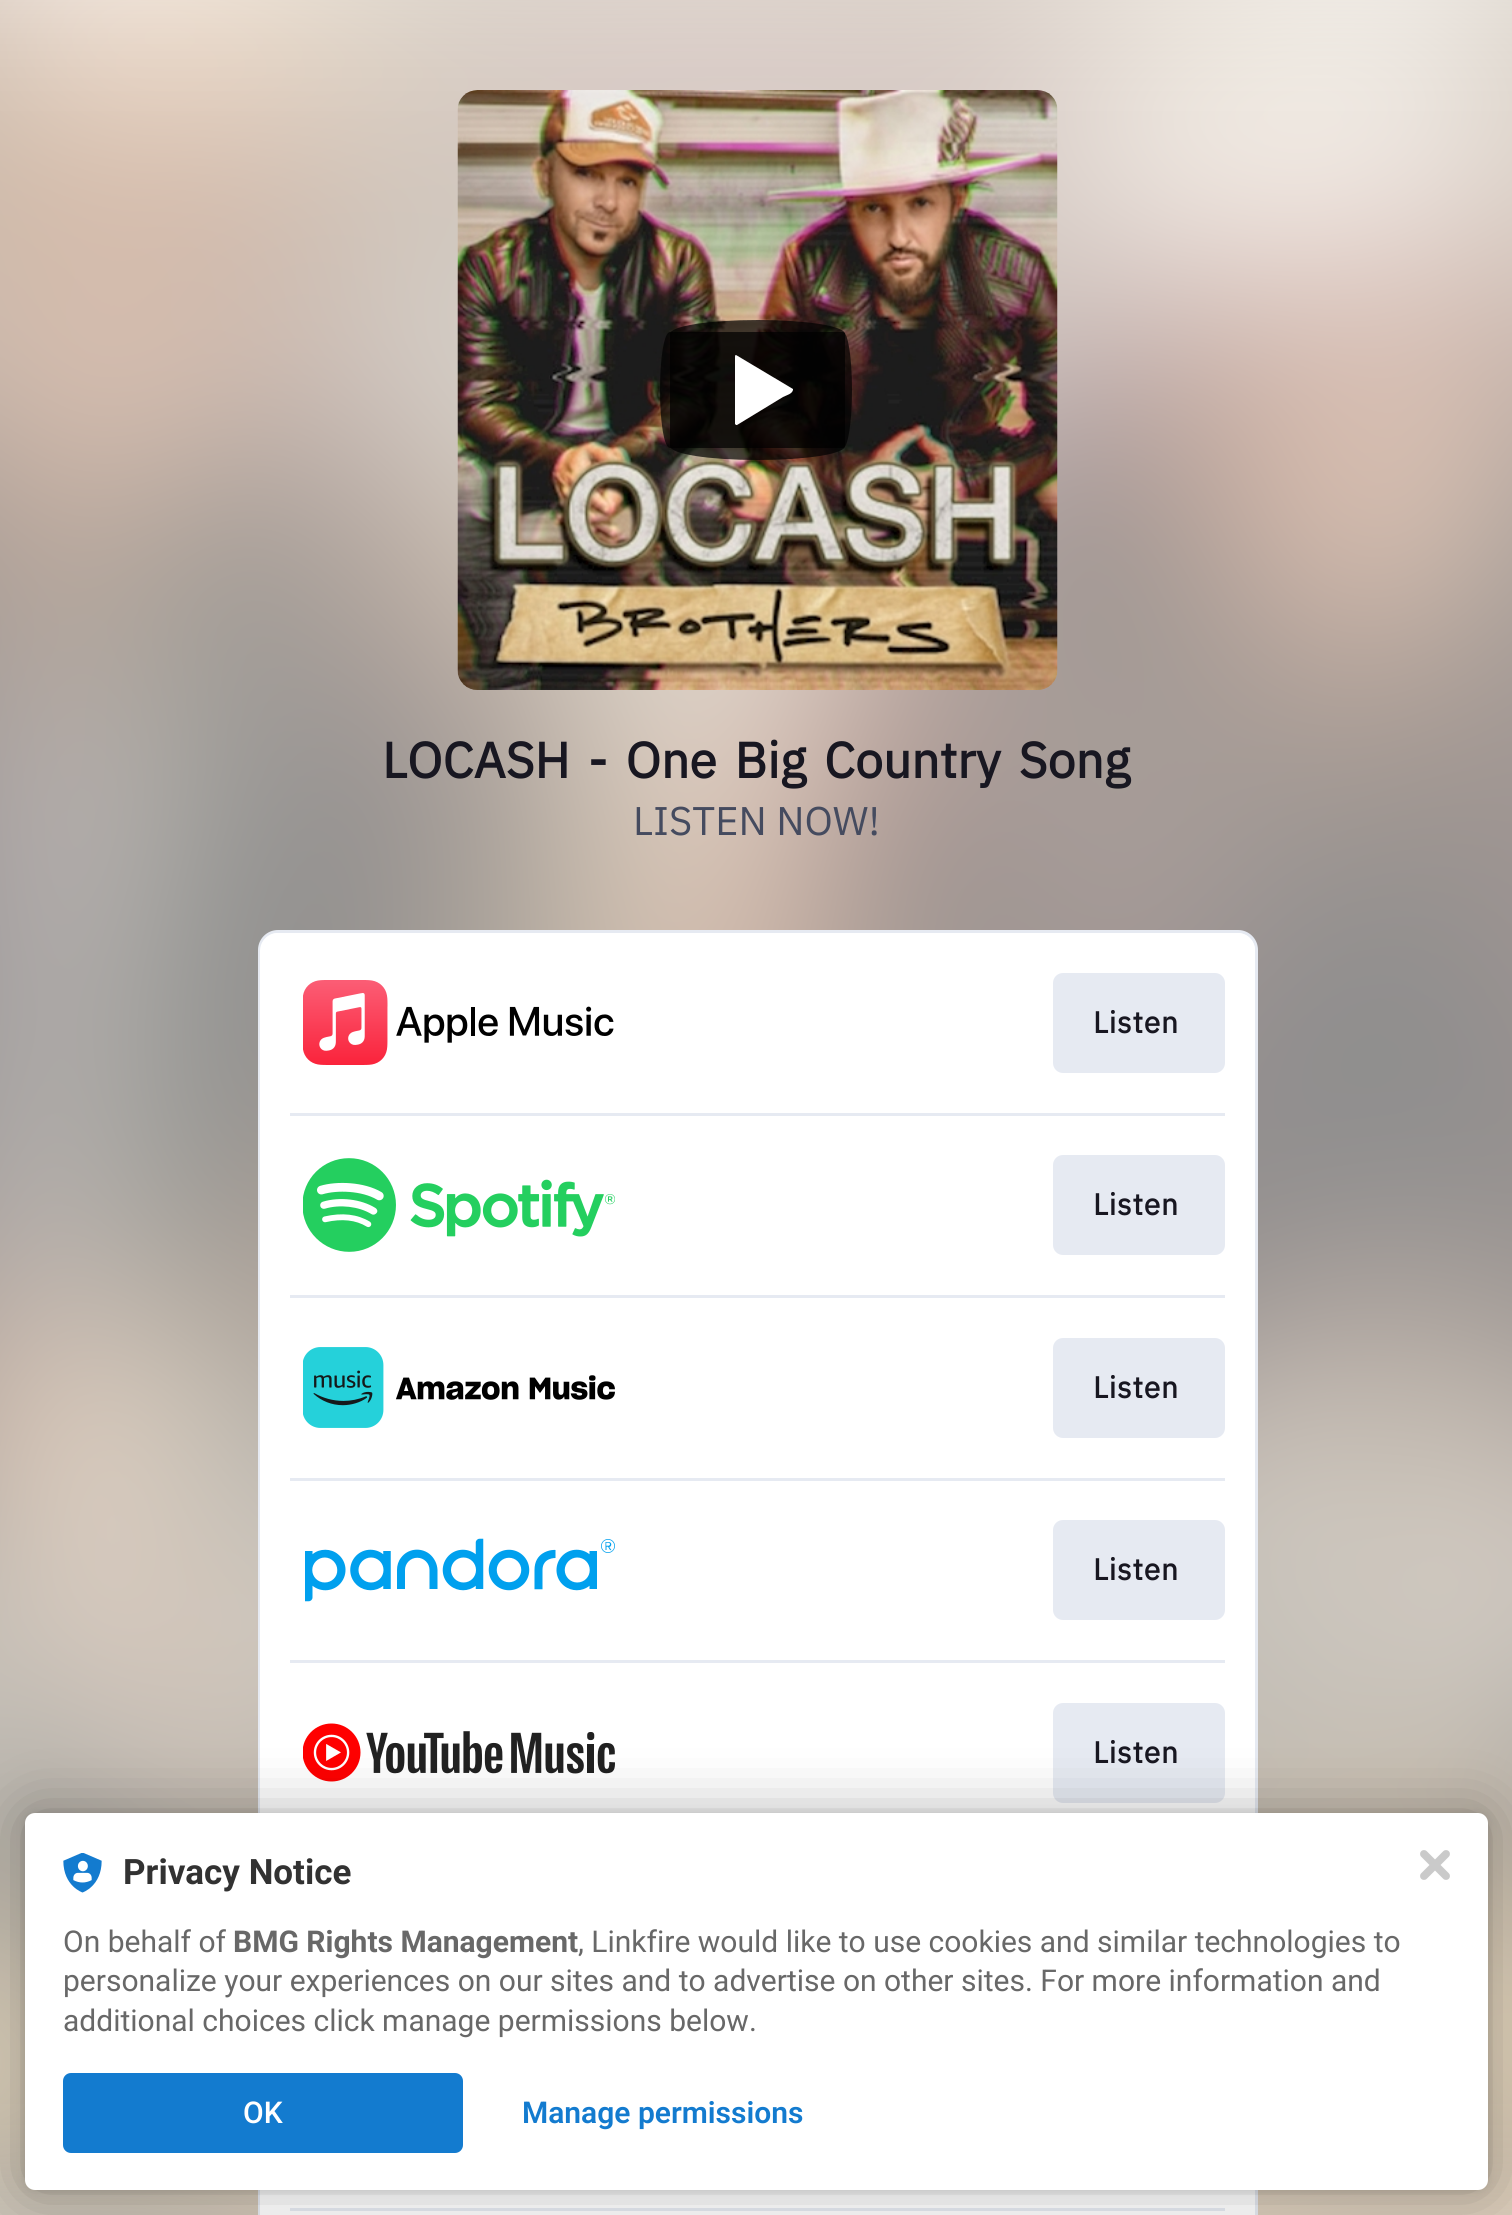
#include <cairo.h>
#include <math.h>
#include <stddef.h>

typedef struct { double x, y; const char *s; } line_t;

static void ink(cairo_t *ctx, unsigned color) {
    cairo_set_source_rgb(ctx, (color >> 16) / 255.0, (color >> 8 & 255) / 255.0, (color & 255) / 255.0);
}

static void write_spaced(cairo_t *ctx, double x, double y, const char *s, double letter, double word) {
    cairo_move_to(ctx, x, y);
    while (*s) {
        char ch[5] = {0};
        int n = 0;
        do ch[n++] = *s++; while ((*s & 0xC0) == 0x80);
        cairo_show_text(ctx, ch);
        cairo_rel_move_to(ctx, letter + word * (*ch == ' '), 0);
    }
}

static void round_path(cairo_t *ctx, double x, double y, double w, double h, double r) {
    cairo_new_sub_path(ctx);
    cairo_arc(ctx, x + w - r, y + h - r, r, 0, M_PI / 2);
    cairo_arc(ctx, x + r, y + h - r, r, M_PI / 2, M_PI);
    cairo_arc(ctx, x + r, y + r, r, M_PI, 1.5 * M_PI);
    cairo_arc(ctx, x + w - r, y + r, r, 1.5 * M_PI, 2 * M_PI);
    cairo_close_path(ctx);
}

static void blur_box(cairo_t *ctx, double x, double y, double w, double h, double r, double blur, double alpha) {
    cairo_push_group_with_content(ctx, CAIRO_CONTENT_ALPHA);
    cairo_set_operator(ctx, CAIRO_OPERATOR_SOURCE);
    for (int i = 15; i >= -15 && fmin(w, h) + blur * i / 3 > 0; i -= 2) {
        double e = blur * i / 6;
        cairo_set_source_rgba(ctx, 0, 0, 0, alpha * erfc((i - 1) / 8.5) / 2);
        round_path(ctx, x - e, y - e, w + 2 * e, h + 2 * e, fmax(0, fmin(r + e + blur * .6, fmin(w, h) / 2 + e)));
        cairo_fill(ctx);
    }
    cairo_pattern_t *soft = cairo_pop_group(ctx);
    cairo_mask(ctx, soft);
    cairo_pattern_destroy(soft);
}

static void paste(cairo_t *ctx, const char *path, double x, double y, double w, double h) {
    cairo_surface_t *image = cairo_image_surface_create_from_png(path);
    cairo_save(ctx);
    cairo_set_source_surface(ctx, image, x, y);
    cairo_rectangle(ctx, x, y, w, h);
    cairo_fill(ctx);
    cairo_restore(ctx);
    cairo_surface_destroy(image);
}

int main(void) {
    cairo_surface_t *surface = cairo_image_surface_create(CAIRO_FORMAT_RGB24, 1512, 2215);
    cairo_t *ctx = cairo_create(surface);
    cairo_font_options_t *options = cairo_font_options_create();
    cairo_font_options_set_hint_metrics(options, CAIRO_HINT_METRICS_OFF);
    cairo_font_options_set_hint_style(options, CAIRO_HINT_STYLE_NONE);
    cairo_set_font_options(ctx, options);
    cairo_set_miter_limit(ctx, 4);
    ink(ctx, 0xFFFFFF);
    cairo_paint(ctx);
    paste(ctx, "media/1.png", 0, 0, 1512, 2215);
    paste(ctx, "media/2.png", 457, 90, 601, 600);
    cairo_set_source_rgba(ctx, 0, 0, 0, 0.7);
    cairo_new_path(ctx);
    cairo_move_to(ctx, 758, 320);
    cairo_curve_to(ctx, 806, 320, 845, 326, 845, 334);
    cairo_line_to(ctx, 845, 446);
    cairo_curve_to(ctx, 845, 454, 806, 460, 758, 460);
    cairo_curve_to(ctx, 709, 460, 670, 454, 670, 446);
    cairo_line_to(ctx, 670, 334);
    cairo_curve_to(ctx, 670, 326, 709, 320, 758, 320);
    cairo_close_path(ctx);
    cairo_fill(ctx);
    cairo_new_path(ctx);
    cairo_move_to(ctx, 670, 332);
    cairo_line_to(ctx, 843, 332);
    cairo_curve_to(ctx, 848, 332, 852, 358, 852, 390);
    cairo_curve_to(ctx, 852, 422, 848, 448, 843, 448);
    cairo_line_to(ctx, 670, 448);
    cairo_curve_to(ctx, 664, 448, 660, 422, 660, 390);
    cairo_curve_to(ctx, 660, 358, 664, 332, 670, 332);
    cairo_close_path(ctx);
    cairo_fill(ctx);
    ink(ctx, 0xFFFFFF);
    cairo_new_path(ctx);
    cairo_move_to(ctx, 793, 389);
    cairo_line_to(ctx, 736, 355);
    cairo_curve_to(ctx, 735, 355, 735, 356, 735, 357);
    cairo_line_to(ctx, 735, 424);
    cairo_line_to(ctx, 736, 425);
    cairo_line_to(ctx, 737, 425);
    cairo_line_to(ctx, 783, 397);
    cairo_curve_to(ctx, 787, 395, 792, 394, 793, 390);
    cairo_close_path(ctx);
    cairo_fill(ctx);
    cairo_select_font_face(ctx, "IBM Plex Sans", CAIRO_FONT_SLANT_NORMAL, CAIRO_FONT_WEIGHT_BOLD);
    cairo_set_font_size(ctx, 50);
    ink(ctx, 0x181721);
    write_spaced(ctx, 382, 778, "LOCASH - One Big Country Song", 0, 6);
    cairo_select_font_face(ctx, "IBM Plex Sans", CAIRO_FONT_SLANT_NORMAL, CAIRO_FONT_WEIGHT_NORMAL);
    cairo_set_font_size(ctx, 40);
    ink(ctx, 0x454B5F);
    cairo_move_to(ctx, 633, 835);
    cairo_show_text(ctx, "LISTEN NOW!");
    ink(ctx, 0xFFFFFF);
    round_path(ctx, 259.5, 931.5, 997, 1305, 18.5);
    cairo_fill_preserve(ctx);
    ink(ctx, 0xE6EAF2);
    cairo_set_line_width(ctx, 3);
    cairo_stroke(ctx);
    ink(ctx, 0xFFFFFF);
    round_path(ctx, 260, 933, 995, 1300, 18);
    cairo_fill(ctx);
    paste(ctx, "media/3.png", 303, 980, 311, 85);
    ink(ctx, 0xE6EAF2);
    round_path(ctx, 1053, 973, 172, 100, 10);
    cairo_fill(ctx);
    cairo_select_font_face(ctx, "IBM Plex Sans", CAIRO_FONT_SLANT_NORMAL, CAIRO_FONT_WEIGHT_BOLD);
    cairo_set_font_size(ctx, 30);
    ink(ctx, 0x181721);
    write_spaced(ctx, 1093, 1033, "Listen", 0.75, 0);
    ink(ctx, 0xE6EAF2);
    cairo_rectangle(ctx, 290, 1113, 935, 3);
    cairo_fill(ctx);
    paste(ctx, "media/4.png", 303, 1158, 312, 94);
    round_path(ctx, 1053, 1155, 172, 100, 10);
    cairo_fill(ctx);
    ink(ctx, 0x181721);
    write_spaced(ctx, 1093, 1215, "Listen", 0.75, 0);
    ink(ctx, 0xE6EAF2);
    cairo_rectangle(ctx, 290, 1295, 935, 3);
    cairo_fill(ctx);
    paste(ctx, "media/5.png", 303, 1347, 312, 81);
    round_path(ctx, 1053, 1338, 172, 100, 10);
    cairo_fill(ctx);
    ink(ctx, 0x181721);
    write_spaced(ctx, 1093, 1398, "Listen", 0.75, 0);
    ink(ctx, 0xE6EAF2);
    cairo_rectangle(ctx, 290, 1478, 935, 3);
    cairo_fill(ctx);
    paste(ctx, "media/6.png", 305, 1538, 310, 64);
    round_path(ctx, 1053, 1520, 172, 100, 10);
    cairo_fill(ctx);
    ink(ctx, 0x181721);
    write_spaced(ctx, 1093, 1580, "Listen", 0.75, 0);
    ink(ctx, 0xE6EAF2);
    cairo_rectangle(ctx, 290, 1660, 935, 3);
    cairo_fill(ctx);
    paste(ctx, "media/7.png", 303, 1723, 312, 59);
    round_path(ctx, 1053, 1703, 172, 100, 10);
    cairo_fill(ctx);
    ink(ctx, 0x181721);
    write_spaced(ctx, 1093, 1763, "Listen", 0.75, 0);
    ink(ctx, 0xE6EAF2);
    cairo_rectangle(ctx, 290, 2208, 935, 3);
    cairo_fill(ctx);
    ink(ctx, 0x000000);
    blur_box(ctx, 25, 1813, 1463, 377, 10, 5, 0.12);
    blur_box(ctx, 25, 1813, 1463, 377, 10, 30, 0.3);
    ink(ctx, 0xFFFFFF);
    round_path(ctx, 25, 1813, 1463, 377, 10);
    cairo_fill(ctx);
    paste(ctx, "media/8.png", 63, 1853, 39, 40);
    cairo_select_font_face(ctx, "Roboto", CAIRO_FONT_SLANT_NORMAL, CAIRO_FONT_WEIGHT_BOLD);
    cairo_set_font_size(ctx, 35);
    ink(ctx, 0x323232);
    cairo_move_to(ctx, 123, 1884);
    cairo_show_text(ctx, "Privacy Notice");
    cairo_select_font_face(ctx, "Roboto", CAIRO_FONT_SLANT_NORMAL, CAIRO_FONT_WEIGHT_NORMAL);
    cairo_set_font_size(ctx, 30);
    ink(ctx, 0x686868);
    cairo_move_to(ctx, 63, 1952);
    cairo_show_text(ctx, "On behalf of");
    cairo_select_font_face(ctx, "Roboto", CAIRO_FONT_SLANT_NORMAL, CAIRO_FONT_WEIGHT_BOLD);
    cairo_move_to(ctx, 233, 1952);
    cairo_show_text(ctx, "BMG Rights Management");
    cairo_select_font_face(ctx, "Roboto", CAIRO_FONT_SLANT_NORMAL, CAIRO_FONT_WEIGHT_NORMAL);
    {
        static const line_t items[] = {
            {578, 1952, ", Linkfire would like to use cookies and similar technologies to"},
            {63, 1991, "personalize your experiences on our sites and to advertise on other sites. For more information and"},
            {63, 2031, "additional choices click manage permissions below."},
        };
        for (size_t i = 0; i < sizeof items / sizeof *items; i++) {
            cairo_move_to(ctx, items[i].x, items[i].y);
            cairo_show_text(ctx, items[i].s);
        }
    }
    ink(ctx, 0x137BCF);
    round_path(ctx, 63, 2073, 400, 80, 8);
    cairo_fill(ctx);
    cairo_select_font_face(ctx, "Roboto Medium", CAIRO_FONT_SLANT_NORMAL, CAIRO_FONT_WEIGHT_NORMAL);
    ink(ctx, 0xFFFFFF);
    cairo_move_to(ctx, 243, 2123);
    cairo_show_text(ctx, "OK");
    cairo_select_font_face(ctx, "Roboto SemiBold", CAIRO_FONT_SLANT_NORMAL, CAIRO_FONT_WEIGHT_NORMAL);
    ink(ctx, 0x137BCF);
    cairo_move_to(ctx, 522, 2123);
    cairo_show_text(ctx, "Manage permissions");
    paste(ctx, "media/9.png", 1420, 1850, 30, 30);
    cairo_surface_write_to_png(surface, "image.png");
    cairo_font_options_destroy(options);
    cairo_destroy(ctx);
    cairo_surface_destroy(surface);
    return 0;
}
